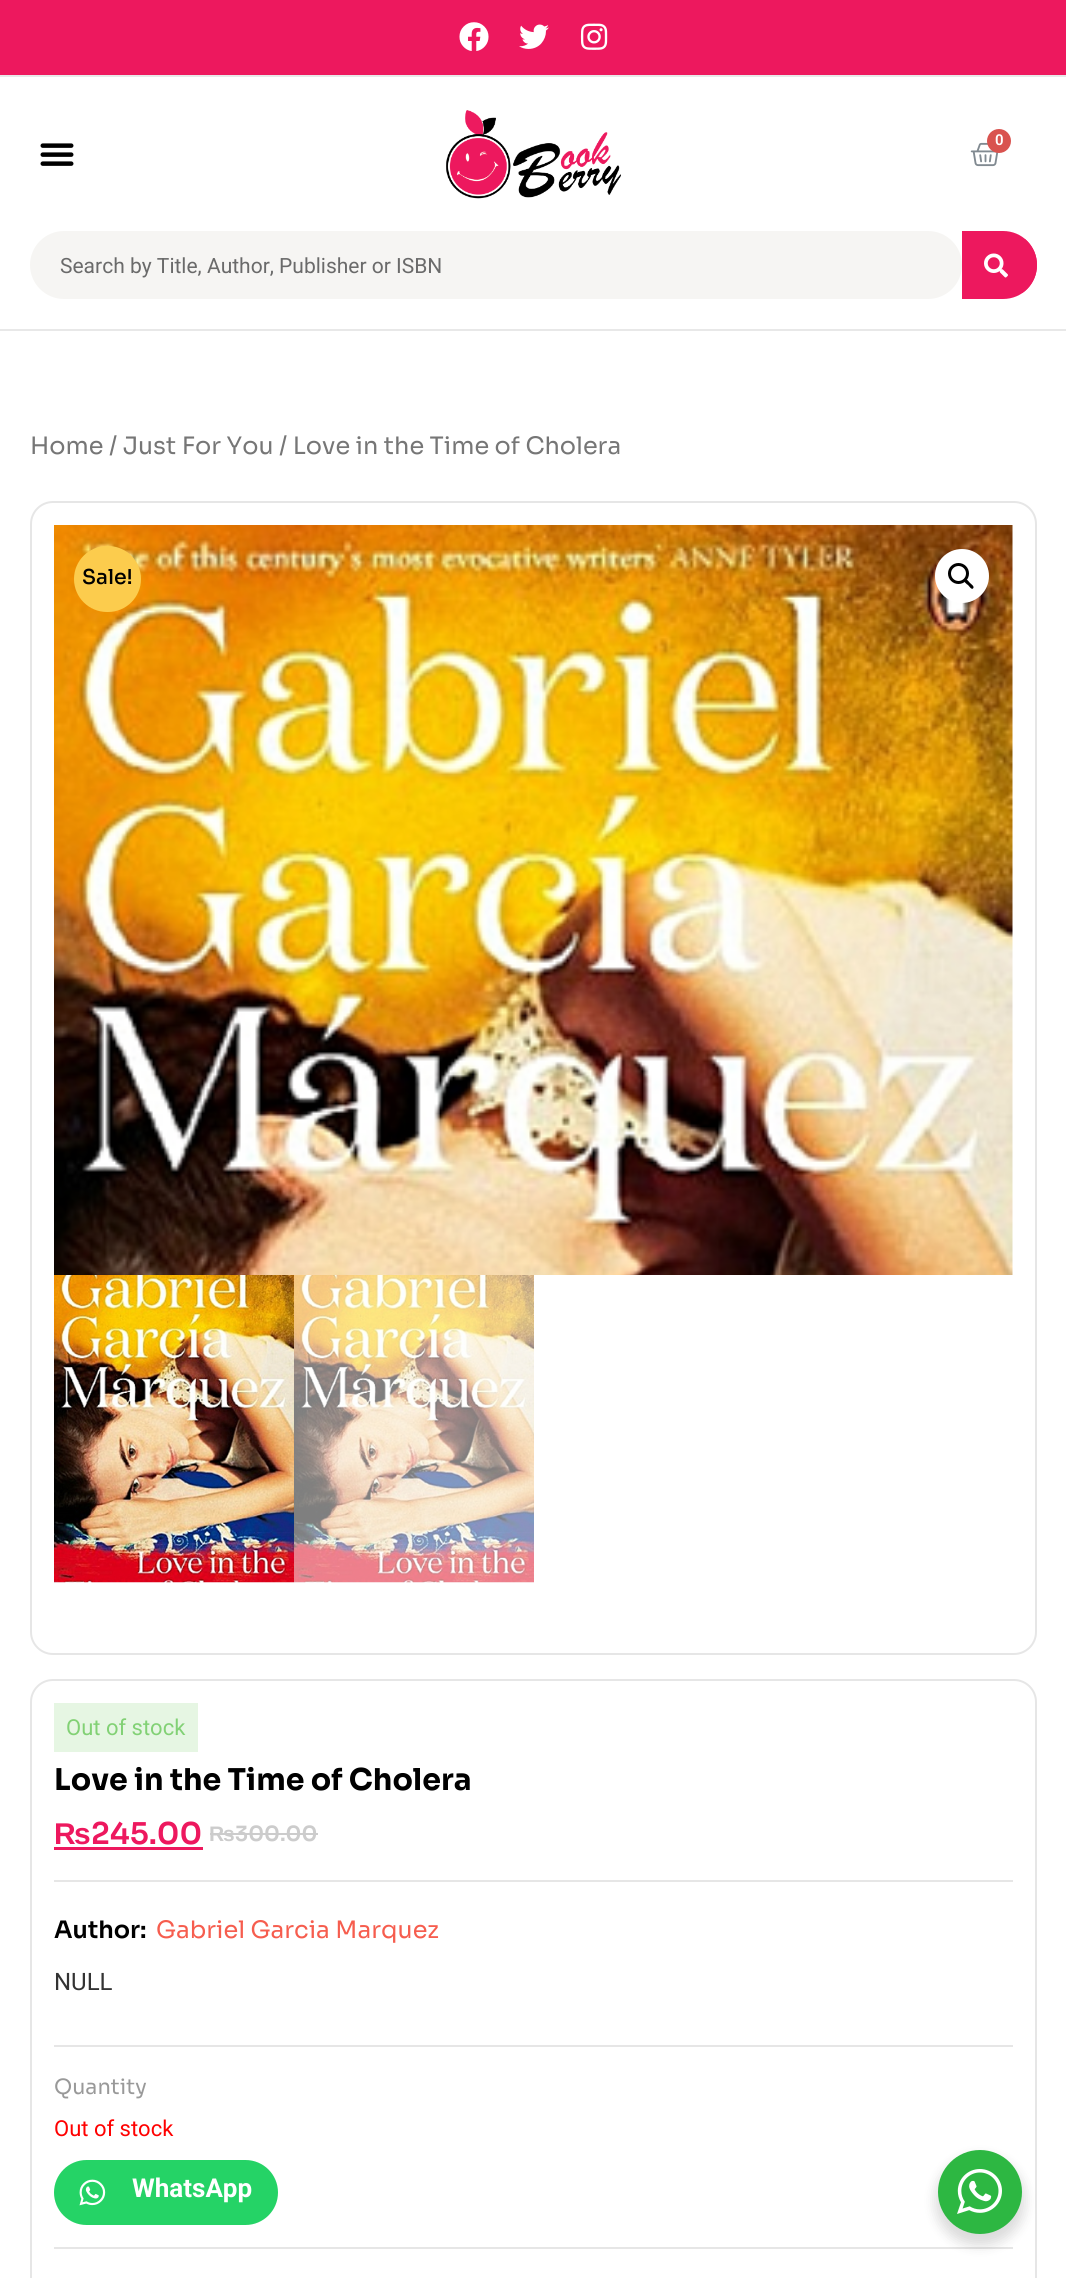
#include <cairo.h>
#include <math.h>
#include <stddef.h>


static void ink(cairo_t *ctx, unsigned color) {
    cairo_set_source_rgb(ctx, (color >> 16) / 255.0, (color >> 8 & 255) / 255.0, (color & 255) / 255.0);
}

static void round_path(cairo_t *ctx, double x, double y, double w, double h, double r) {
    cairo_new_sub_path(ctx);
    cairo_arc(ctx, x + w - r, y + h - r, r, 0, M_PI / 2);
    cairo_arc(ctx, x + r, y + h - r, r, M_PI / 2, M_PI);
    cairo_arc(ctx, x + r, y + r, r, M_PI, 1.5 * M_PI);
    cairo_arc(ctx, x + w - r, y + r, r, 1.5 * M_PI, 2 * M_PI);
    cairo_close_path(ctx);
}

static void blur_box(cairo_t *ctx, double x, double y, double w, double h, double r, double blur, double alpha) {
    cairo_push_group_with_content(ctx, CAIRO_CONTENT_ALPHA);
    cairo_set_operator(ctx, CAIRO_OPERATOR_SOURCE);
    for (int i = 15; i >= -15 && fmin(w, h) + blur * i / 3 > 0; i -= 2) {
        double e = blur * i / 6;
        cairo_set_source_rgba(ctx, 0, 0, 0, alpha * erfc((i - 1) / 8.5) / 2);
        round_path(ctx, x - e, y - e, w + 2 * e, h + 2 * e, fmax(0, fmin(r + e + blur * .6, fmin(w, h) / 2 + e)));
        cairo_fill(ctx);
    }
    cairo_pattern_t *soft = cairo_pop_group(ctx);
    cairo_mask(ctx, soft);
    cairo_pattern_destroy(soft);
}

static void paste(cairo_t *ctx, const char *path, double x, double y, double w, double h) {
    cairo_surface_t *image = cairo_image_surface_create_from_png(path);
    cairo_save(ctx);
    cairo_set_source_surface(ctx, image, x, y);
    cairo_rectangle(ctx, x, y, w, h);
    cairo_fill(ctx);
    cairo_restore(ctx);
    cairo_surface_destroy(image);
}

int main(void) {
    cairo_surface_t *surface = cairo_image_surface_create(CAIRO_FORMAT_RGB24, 1066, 2278);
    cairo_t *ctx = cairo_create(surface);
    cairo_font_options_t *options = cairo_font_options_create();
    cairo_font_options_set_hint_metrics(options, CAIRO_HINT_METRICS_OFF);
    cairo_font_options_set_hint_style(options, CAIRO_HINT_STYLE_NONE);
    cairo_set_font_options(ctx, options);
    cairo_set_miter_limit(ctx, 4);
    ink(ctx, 0xFFFFFF);
    cairo_paint(ctx);
    ink(ctx, 0xED185E);
    cairo_rectangle(ctx, 0, 0, 1066, 75);
    cairo_fill(ctx);
    paste(ctx, "media/1.png", 459, 22, 30, 29);
    paste(ctx, "media/2.png", 519, 24, 30, 25);
    paste(ctx, "media/3.png", 580, 23, 28, 27);
    ink(ctx, 0xE8E8E8);
    cairo_rectangle(ctx, 0, 75, 1066, 2);
    cairo_fill(ctx);
    cairo_rectangle(ctx, 0, 329, 1066, 2);
    cairo_fill(ctx);
    paste(ctx, "media/4.png", 446, 110, 175, 89);
    paste(ctx, "media/5.png", 970, 142, 30, 25);
    ink(ctx, 0xD9534F);
    cairo_arc(ctx, 999, 141, 12, 0, 2 * M_PI);
    cairo_fill(ctx);
    cairo_select_font_face(ctx, "Roboto SemiBold", CAIRO_FONT_SLANT_NORMAL, CAIRO_FONT_WEIGHT_NORMAL);
    cairo_set_font_size(ctx, 15);
    ink(ctx, 0xFFFFFF);
    cairo_move_to(ctx, 995, 145);
    cairo_show_text(ctx, "0");
    paste(ctx, "media/6.png", 40, 143, 34, 23);
    ink(ctx, 0xF6F5F3);
    round_path(ctx, 30, 231, 932, 68, 34);
    cairo_fill(ctx);
    cairo_select_font_face(ctx, "Roboto", CAIRO_FONT_SLANT_NORMAL, CAIRO_FONT_WEIGHT_NORMAL);
    cairo_set_font_size(ctx, 21);
    ink(ctx, 0x6A6A6A);
    cairo_move_to(ctx, 60, 273);
    cairo_show_text(ctx, "Search by Title, Author, Publisher or ISBN");
    ink(ctx, 0xED185E);
    cairo_new_path(ctx);
    cairo_move_to(ctx, 962, 231);
    cairo_line_to(ctx, 1003, 231);
    cairo_curve_to(ctx, 1022, 231, 1037, 246, 1037, 265);
    cairo_curve_to(ctx, 1037, 284, 1022, 299, 1003, 299);
    cairo_line_to(ctx, 962, 299);
    cairo_close_path(ctx);
    cairo_fill(ctx);
    cairo_save(ctx);
    round_path(ctx, 30, 231, 1007, 68, 34);
    cairo_clip(ctx);
    cairo_rectangle(ctx, 962, 239, 75, 54);
    cairo_fill(ctx);
    cairo_restore(ctx);
    paste(ctx, "media/7.png", 984, 253, 24, 25);
    cairo_select_font_face(ctx, "Sora", CAIRO_FONT_SLANT_NORMAL, CAIRO_FONT_WEIGHT_NORMAL);
    cairo_set_font_size(ctx, 24);
    ink(ctx, 0x767676);
    cairo_move_to(ctx, 30, 454);
    cairo_show_text(ctx, "Home / Just For You / Love in the Time of Cholera");
    round_path(ctx, 31, 502, 1005, 1152, 22);
    ink(ctx, 0xE6E6E6);
    cairo_stroke(ctx);
    paste(ctx, "media/8.png", 54, 525, 959, 750);
    ink(ctx, 0xFFFFFF);
    cairo_arc(ctx, 962, 576, 27, 0, 2 * M_PI);
    cairo_fill(ctx);
    cairo_arc(ctx, 958.5, 573.5, 9, 0, 2 * M_PI);
    ink(ctx, 0x000000);
    cairo_set_line_width(ctx, 3);
    cairo_stroke(ctx);
    cairo_new_path(ctx);
    cairo_move_to(ctx, 965, 580);
    cairo_curve_to(ctx, 966.5, 578, 969, 582, 970, 583);
    cairo_curve_to(ctx, 971, 584, 975, 586.5, 973, 588.5);
    cairo_curve_to(ctx, 971.5, 590, 969, 586, 968, 585);
    cairo_curve_to(ctx, 967, 584.5, 963, 581.5, 965, 580);
    cairo_close_path(ctx);
    cairo_fill(ctx);
    paste(ctx, "media/9.png", 54, 1275, 240, 308);
    paste(ctx, "media/10.png", 294, 1275, 240, 308);
    ink(ctx, 0xFCCC4D);
    round_path(ctx, 74, 546, 67, 66, 33);
    cairo_fill(ctx);
    cairo_select_font_face(ctx, "Sora Medium", CAIRO_FONT_SLANT_NORMAL, CAIRO_FONT_WEIGHT_NORMAL);
    cairo_set_font_size(ctx, 20.5);
    ink(ctx, 0x000000);
    cairo_move_to(ctx, 82, 584);
    cairo_show_text(ctx, "Sale!");
    round_path(ctx, 31, 1680, 1005, 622, 22);
    ink(ctx, 0xE6E6E6);
    cairo_set_line_width(ctx, 2);
    cairo_stroke(ctx);
    ink(ctx, 0xE6F6E3);
    cairo_rectangle(ctx, 54, 1703, 144, 49);
    cairo_fill(ctx);
    cairo_select_font_face(ctx, "Roboto", CAIRO_FONT_SLANT_NORMAL, CAIRO_FONT_WEIGHT_NORMAL);
    cairo_set_font_size(ctx, 22);
    ink(ctx, 0x82D175);
    cairo_move_to(ctx, 66, 1735);
    cairo_show_text(ctx, "Out of stock");
    cairo_select_font_face(ctx, "Sora", CAIRO_FONT_SLANT_NORMAL, CAIRO_FONT_WEIGHT_BOLD);
    cairo_set_font_size(ctx, 30);
    ink(ctx, 0x000000);
    cairo_move_to(ctx, 54, 1790);
    cairo_show_text(ctx, "Love in the Time of Cholera");
    cairo_select_font_face(ctx, "Liberation Sans", CAIRO_FONT_SLANT_NORMAL, CAIRO_FONT_WEIGHT_BOLD);
    ink(ctx, 0xED185E);
    cairo_move_to(ctx, 54, 1844);
    cairo_show_text(ctx, "₨");
    cairo_rectangle(ctx, 54, 1847, 149, 3);
    cairo_fill(ctx);
    cairo_select_font_face(ctx, "Sora SemiBold", CAIRO_FONT_SLANT_NORMAL, CAIRO_FONT_WEIGHT_NORMAL);
    cairo_move_to(ctx, 91, 1844);
    cairo_show_text(ctx, "245.00");
    cairo_select_font_face(ctx, "Liberation Sans", CAIRO_FONT_SLANT_NORMAL, CAIRO_FONT_WEIGHT_BOLD);
    cairo_set_font_size(ctx, 21);
    ink(ctx, 0xCCCCCC);
    cairo_move_to(ctx, 209, 1841);
    cairo_show_text(ctx, "₨");
    cairo_rectangle(ctx, 210, 1833, 26, 2);
    cairo_fill(ctx);
    cairo_rectangle(ctx, 236, 1833, 82, 2);
    cairo_fill(ctx);
    cairo_select_font_face(ctx, "Sora SemiBold", CAIRO_FONT_SLANT_NORMAL, CAIRO_FONT_WEIGHT_NORMAL);
    cairo_move_to(ctx, 235, 1841);
    cairo_show_text(ctx, "300.00");
    ink(ctx, 0xE6E6E6);
    cairo_rectangle(ctx, 54, 1880, 959, 2);
    cairo_fill(ctx);
    cairo_set_font_size(ctx, 24);
    ink(ctx, 0x000000);
    cairo_move_to(ctx, 54, 1938);
    cairo_show_text(ctx, "Author:");
    cairo_select_font_face(ctx, "Sora", CAIRO_FONT_SLANT_NORMAL, CAIRO_FONT_WEIGHT_NORMAL);
    ink(ctx, 0xF65D4E);
    cairo_move_to(ctx, 156, 1938);
    cairo_show_text(ctx, "Gabriel Garcia Marquez");
    cairo_select_font_face(ctx, "Roboto", CAIRO_FONT_SLANT_NORMAL, CAIRO_FONT_WEIGHT_NORMAL);
    ink(ctx, 0x333333);
    cairo_move_to(ctx, 54, 1990);
    cairo_show_text(ctx, "NULL");
    ink(ctx, 0xE6E6E6);
    cairo_rectangle(ctx, 54, 2045, 959, 2);
    cairo_fill(ctx);
    cairo_select_font_face(ctx, "Sora", CAIRO_FONT_SLANT_NORMAL, CAIRO_FONT_WEIGHT_NORMAL);
    cairo_set_font_size(ctx, 21);
    ink(ctx, 0x999999);
    cairo_move_to(ctx, 54, 2094);
    cairo_show_text(ctx, "Quantity");
    cairo_select_font_face(ctx, "Roboto", CAIRO_FONT_SLANT_NORMAL, CAIRO_FONT_WEIGHT_NORMAL);
    cairo_set_font_size(ctx, 22);
    ink(ctx, 0xFF0000);
    cairo_move_to(ctx, 54, 2136);
    cairo_show_text(ctx, "Out of stock");
    ink(ctx, 0x25D366);
    round_path(ctx, 54, 2160, 224, 65, 32.5);
    cairo_fill(ctx);
    paste(ctx, "media/11.png", 79, 2179, 27, 27);
    cairo_select_font_face(ctx, "Roboto", CAIRO_FONT_SLANT_NORMAL, CAIRO_FONT_WEIGHT_BOLD);
    cairo_set_font_size(ctx, 26);
    ink(ctx, 0xFFFFFF);
    cairo_move_to(ctx, 132, 2197);
    cairo_show_text(ctx, "WhatsApp");
    ink(ctx, 0xE6E6E6);
    cairo_rectangle(ctx, 54, 2247, 959, 2);
    cairo_fill(ctx);
    ink(ctx, 0x000000);
    blur_box(ctx, 935, 2156, 90, 90, 45, 6, 0.14);
    ink(ctx, 0x2DB742);
    cairo_arc(ctx, 980, 2192, 42, 0, 2 * M_PI);
    cairo_fill(ctx);
    paste(ctx, "media/12.png", 957, 2169, 45, 45);
    cairo_surface_write_to_png(surface, "image.png");
    cairo_font_options_destroy(options);
    cairo_destroy(ctx);
    cairo_surface_destroy(surface);
    return 0;
}
